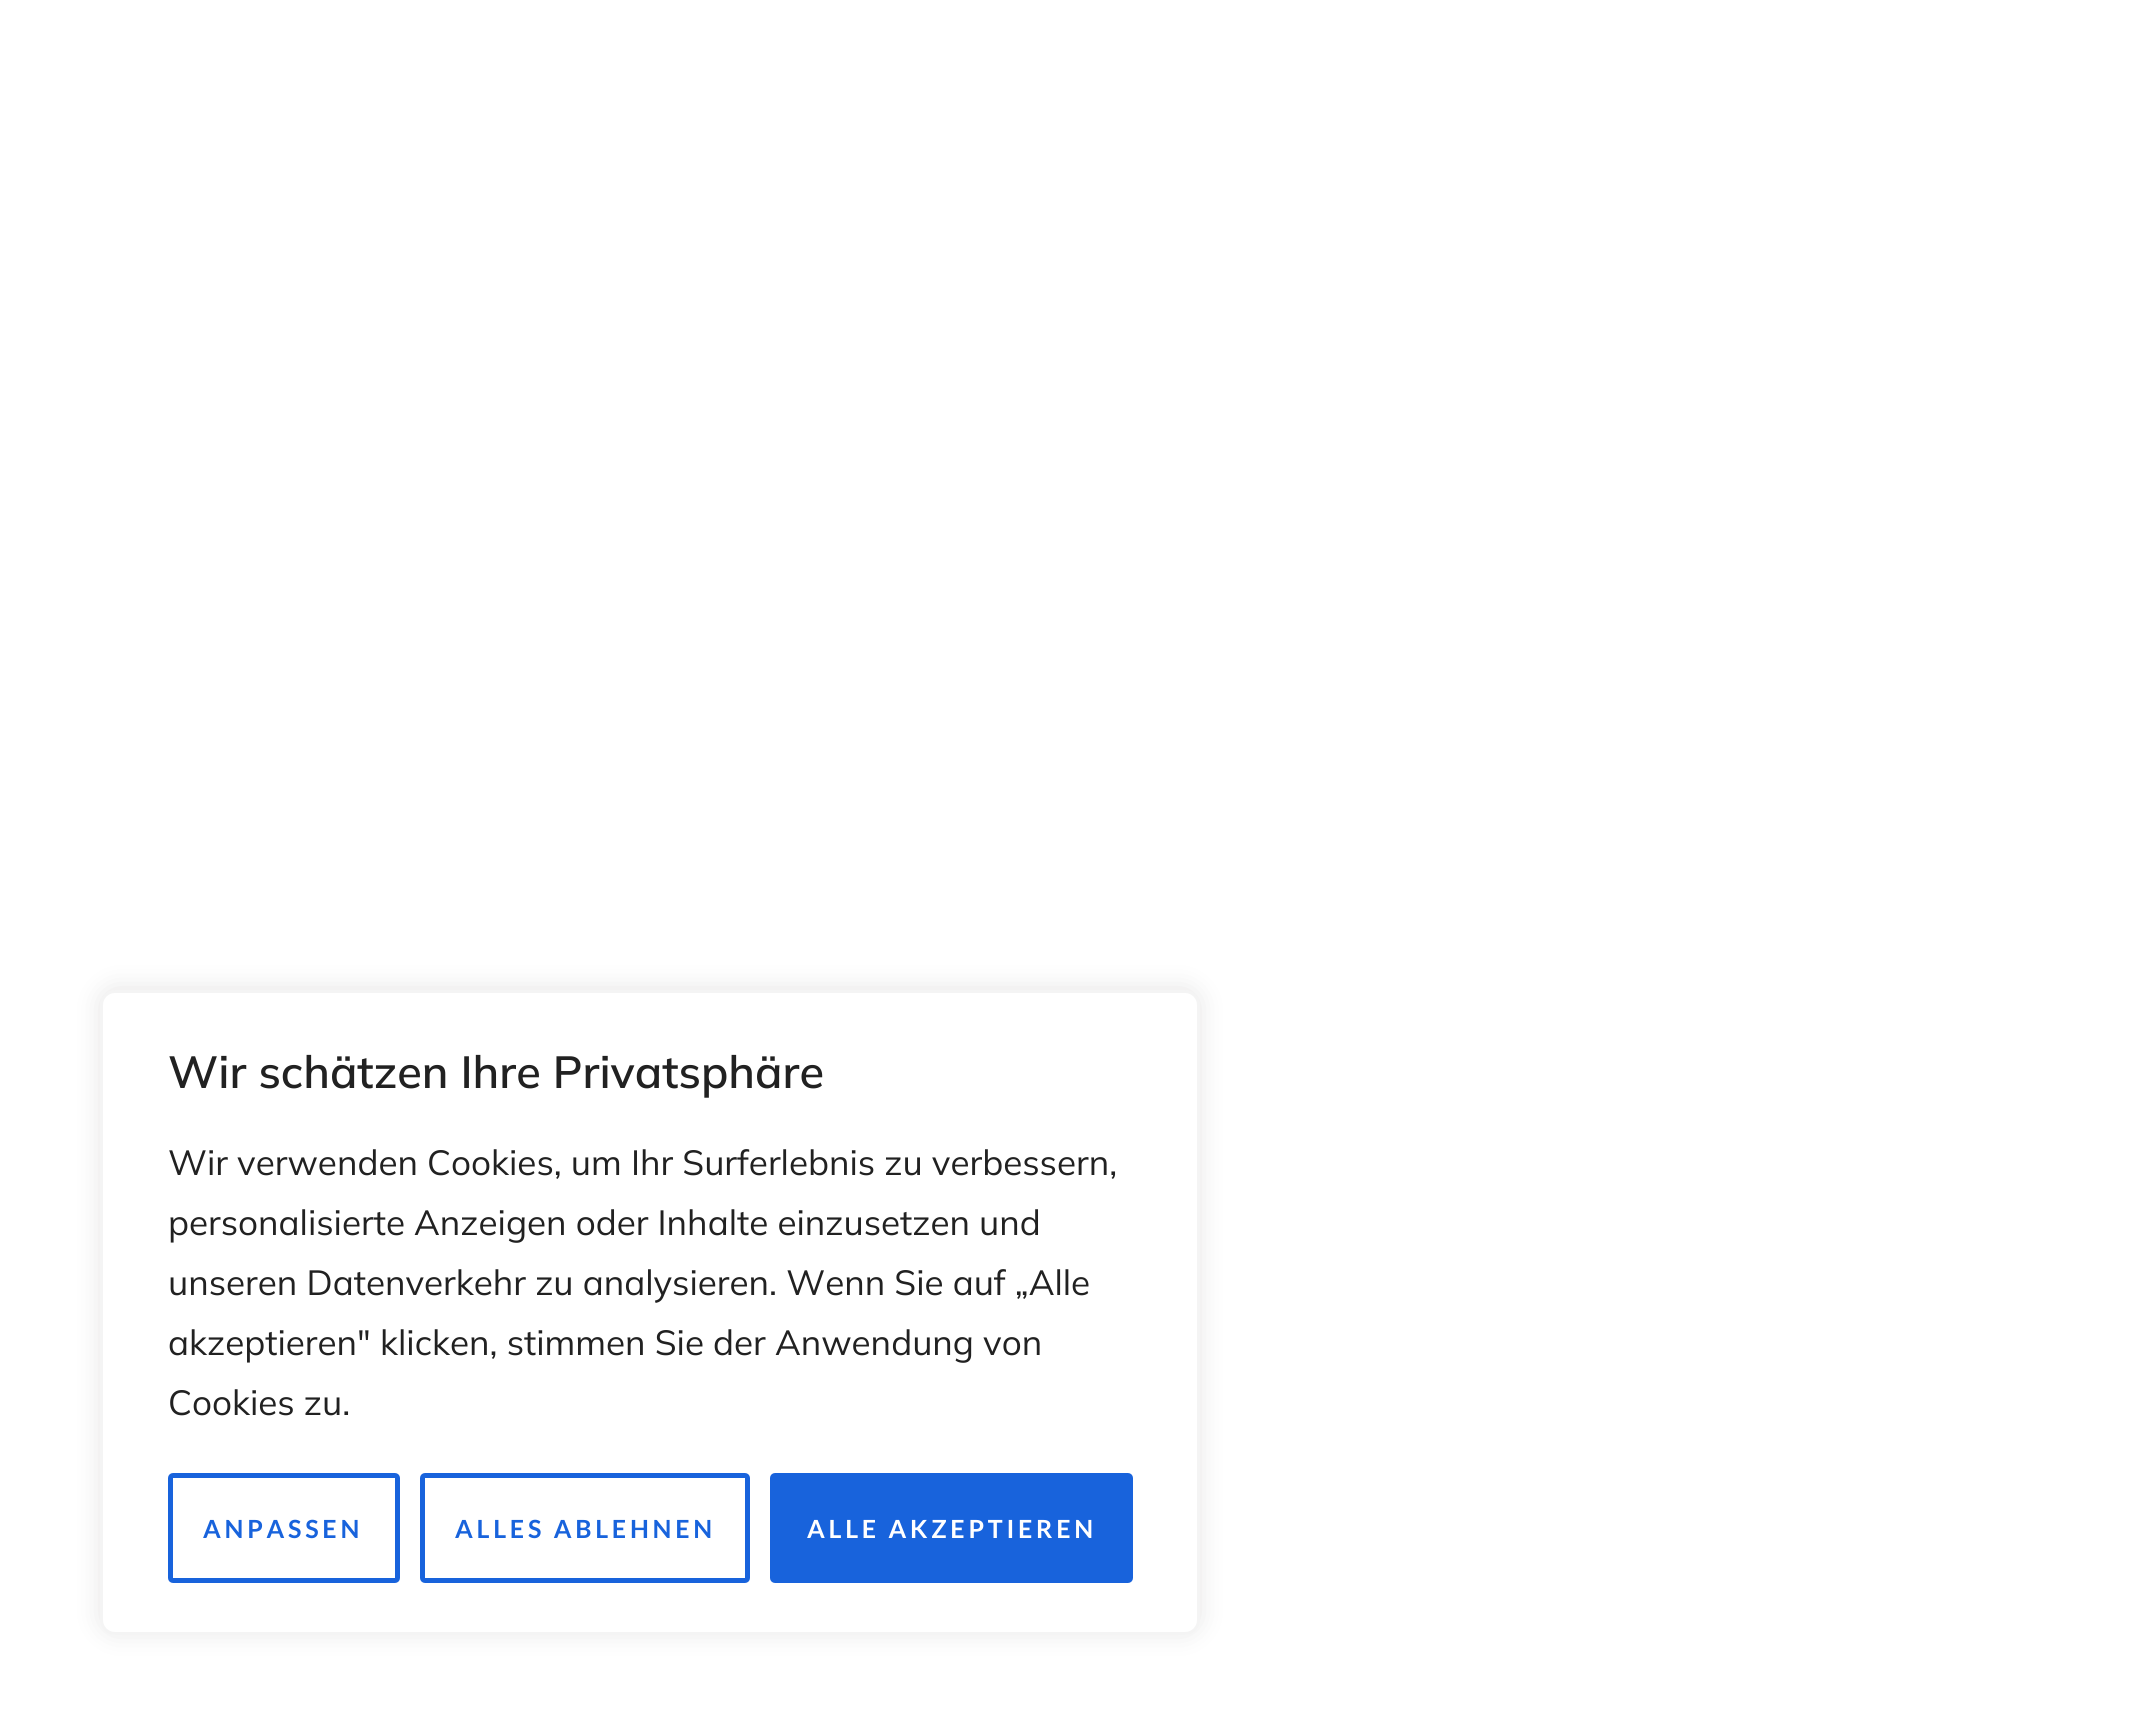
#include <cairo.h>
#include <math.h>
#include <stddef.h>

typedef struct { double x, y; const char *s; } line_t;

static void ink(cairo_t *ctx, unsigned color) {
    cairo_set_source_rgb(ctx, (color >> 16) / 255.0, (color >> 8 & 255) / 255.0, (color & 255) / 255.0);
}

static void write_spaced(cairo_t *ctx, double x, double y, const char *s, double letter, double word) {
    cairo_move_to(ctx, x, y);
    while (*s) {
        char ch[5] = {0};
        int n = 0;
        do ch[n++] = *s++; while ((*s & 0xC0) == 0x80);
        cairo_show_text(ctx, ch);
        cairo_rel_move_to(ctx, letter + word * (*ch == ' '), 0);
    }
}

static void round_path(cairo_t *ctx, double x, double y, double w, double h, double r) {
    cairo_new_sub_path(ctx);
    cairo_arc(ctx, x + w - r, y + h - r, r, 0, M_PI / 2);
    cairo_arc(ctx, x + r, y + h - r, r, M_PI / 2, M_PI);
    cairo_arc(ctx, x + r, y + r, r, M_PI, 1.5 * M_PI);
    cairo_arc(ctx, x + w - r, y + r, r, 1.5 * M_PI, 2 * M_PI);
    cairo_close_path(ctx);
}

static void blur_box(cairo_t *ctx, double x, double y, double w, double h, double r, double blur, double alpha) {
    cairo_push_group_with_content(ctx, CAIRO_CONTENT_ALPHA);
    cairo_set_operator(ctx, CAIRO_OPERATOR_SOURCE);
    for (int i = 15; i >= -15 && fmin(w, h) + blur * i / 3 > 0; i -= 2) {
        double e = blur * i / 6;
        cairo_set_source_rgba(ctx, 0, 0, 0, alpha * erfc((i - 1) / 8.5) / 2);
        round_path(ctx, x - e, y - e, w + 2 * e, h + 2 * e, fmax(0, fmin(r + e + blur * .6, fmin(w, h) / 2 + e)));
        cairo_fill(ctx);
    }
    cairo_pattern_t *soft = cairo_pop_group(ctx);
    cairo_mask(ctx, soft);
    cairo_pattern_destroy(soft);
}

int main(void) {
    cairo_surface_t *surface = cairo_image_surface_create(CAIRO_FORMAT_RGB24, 2145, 1733);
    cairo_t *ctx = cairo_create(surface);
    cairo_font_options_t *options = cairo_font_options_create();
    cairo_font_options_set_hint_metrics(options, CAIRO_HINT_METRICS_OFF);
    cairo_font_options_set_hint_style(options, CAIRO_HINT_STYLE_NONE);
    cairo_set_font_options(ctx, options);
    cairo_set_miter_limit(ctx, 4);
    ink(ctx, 0xFFFFFF);
    cairo_paint(ctx);
    ink(ctx, 0xACABAB);
    blur_box(ctx, 100, 988, 1100, 645, 15, 12.5, 0.3);
    ink(ctx, 0xFFFFFF);
    round_path(ctx, 101.5, 991.5, 1097, 642, 13.5);
    cairo_fill_preserve(ctx);
    ink(ctx, 0xF4F4F4);
    cairo_set_line_width(ctx, 3);
    cairo_stroke(ctx);
    cairo_select_font_face(ctx, "Mulish SemiBold", CAIRO_FONT_SLANT_NORMAL, CAIRO_FONT_WEIGHT_NORMAL);
    cairo_set_font_size(ctx, 45);
    ink(ctx, 0x212121);
    cairo_move_to(ctx, 168, 1088);
    cairo_show_text(ctx, "Wir schätzen Ihre Privatsphäre");
    cairo_select_font_face(ctx, "Mulish", CAIRO_FONT_SLANT_NORMAL, CAIRO_FONT_WEIGHT_NORMAL);
    cairo_set_font_size(ctx, 35);
    {
        static const line_t items[] = {
            {168, 1175, "Wir verwenden Cookies, um Ihr Surferlebnis zu verbessern,"},
            {168, 1235, "personalisierte Anzeigen oder Inhalte einzusetzen und"},
            {168, 1295, "unseren Datenverkehr zu analysieren. Wenn Sie auf „Alle"},
            {168, 1355, "akzeptieren\" klicken, stimmen Sie der Anwendung von"},
            {168, 1415, "Cookies zu."},
        };
        for (size_t i = 0; i < sizeof items / sizeof *items; i++) {
            cairo_move_to(ctx, items[i].x, items[i].y);
            cairo_show_text(ctx, items[i].s);
        }
    }
    round_path(ctx, 170.5, 1475.5, 227, 105, 2.5);
    ink(ctx, 0x1863DC);
    cairo_set_line_width(ctx, 5);
    cairo_stroke(ctx);
    cairo_select_font_face(ctx, "Lato", CAIRO_FONT_SLANT_NORMAL, CAIRO_FONT_WEIGHT_BOLD);
    cairo_set_font_size(ctx, 25);
    write_spaced(ctx, 203, 1538, "ANPASSEN", 3.75, 0);
    round_path(ctx, 422.5, 1475.5, 325, 105, 2.5);
    cairo_stroke(ctx);
    write_spaced(ctx, 455, 1538, "ALLES ABLEHNEN", 3.75, 0);
    round_path(ctx, 772.5, 1475.5, 358, 105, 2.5);
    cairo_fill_preserve(ctx);
    cairo_stroke(ctx);
    ink(ctx, 0xFFFFFF);
    write_spaced(ctx, 807, 1538, "ALLE AKZEPTIEREN", 3.75, 0);
    cairo_surface_write_to_png(surface, "image.png");
    cairo_font_options_destroy(options);
    cairo_destroy(ctx);
    cairo_surface_destroy(surface);
    return 0;
}
